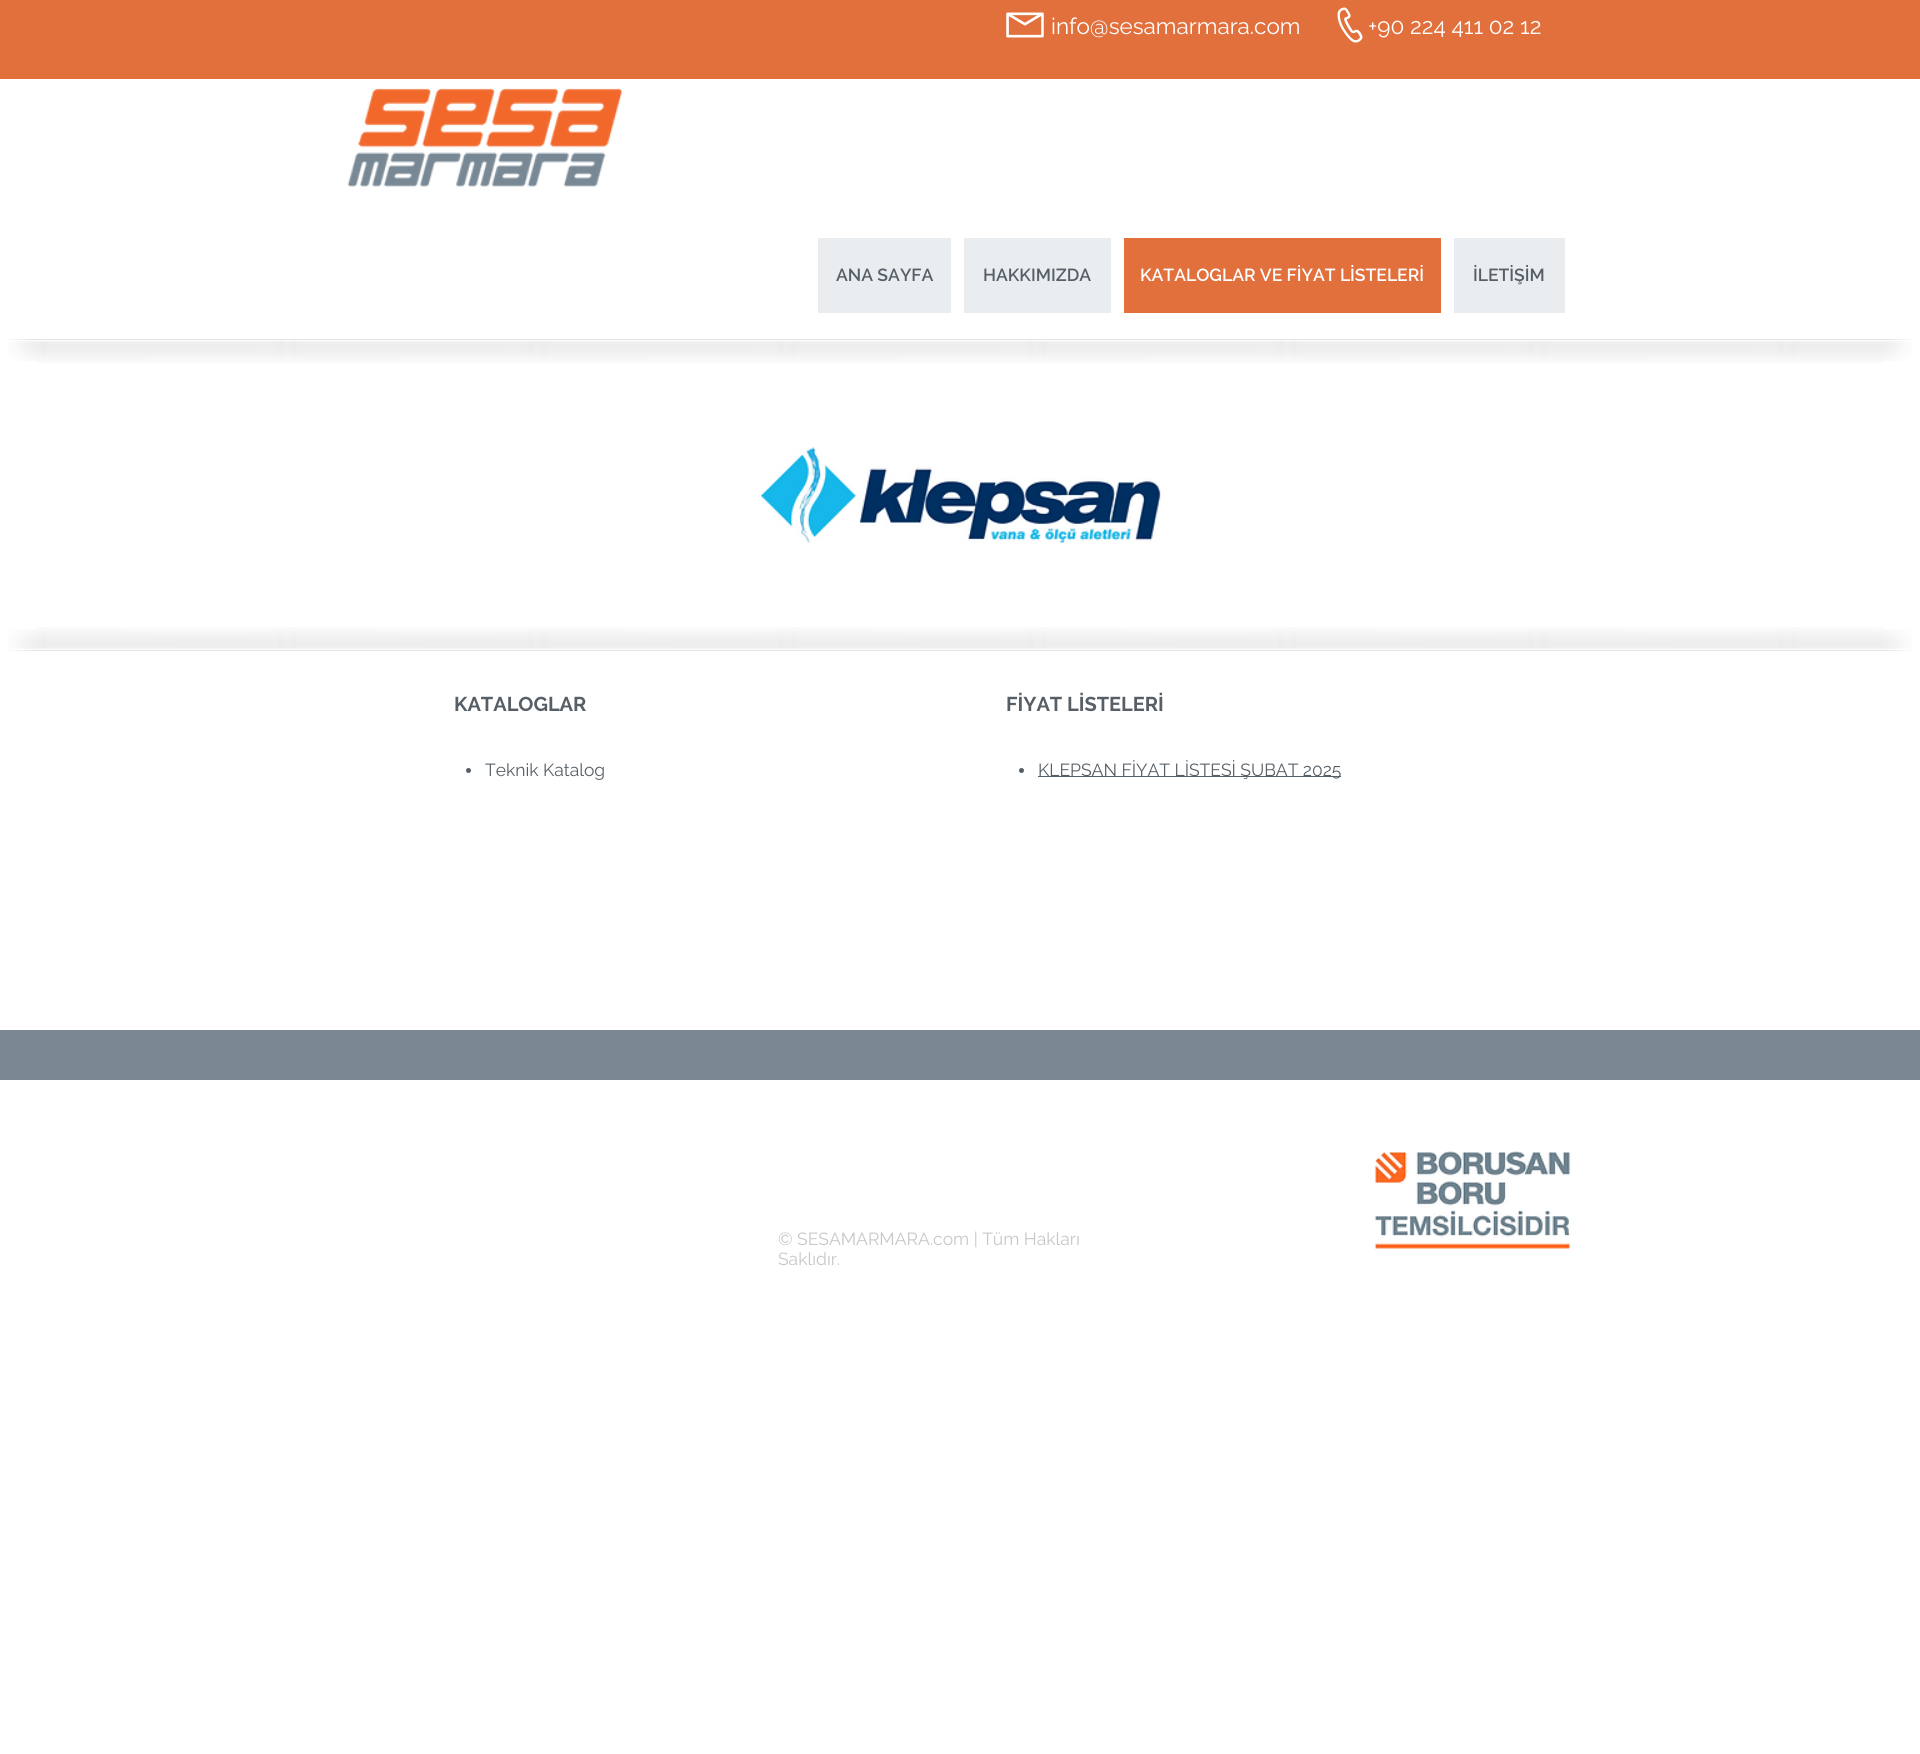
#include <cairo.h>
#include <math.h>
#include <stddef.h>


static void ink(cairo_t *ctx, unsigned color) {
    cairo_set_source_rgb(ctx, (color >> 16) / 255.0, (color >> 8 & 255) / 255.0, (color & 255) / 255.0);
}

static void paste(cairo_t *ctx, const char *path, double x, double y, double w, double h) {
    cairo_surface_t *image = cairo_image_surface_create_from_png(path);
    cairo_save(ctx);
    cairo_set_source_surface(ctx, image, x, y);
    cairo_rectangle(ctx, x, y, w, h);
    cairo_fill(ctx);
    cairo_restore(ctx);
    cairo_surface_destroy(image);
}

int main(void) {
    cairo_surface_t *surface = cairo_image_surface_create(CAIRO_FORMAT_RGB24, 1920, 1754);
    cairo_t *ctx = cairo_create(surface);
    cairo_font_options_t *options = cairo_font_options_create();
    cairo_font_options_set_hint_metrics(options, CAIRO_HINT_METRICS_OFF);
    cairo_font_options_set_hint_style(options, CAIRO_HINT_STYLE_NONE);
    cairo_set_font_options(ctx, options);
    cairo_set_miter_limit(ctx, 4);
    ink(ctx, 0xFFFFFF);
    cairo_paint(ctx);
    ink(ctx, 0xE2703D);
    cairo_rectangle(ctx, 0, 0, 1920, 79);
    cairo_fill(ctx);
    paste(ctx, "media/1.png", 1337, 7, 26, 36);
    paste(ctx, "media/2.png", 1006, 12, 38, 26);
    cairo_select_font_face(ctx, "Raleway", CAIRO_FONT_SLANT_NORMAL, CAIRO_FONT_WEIGHT_NORMAL);
    cairo_set_font_size(ctx, 22.5);
    ink(ctx, 0xFFFFFF);
    cairo_move_to(ctx, 1051, 34);
    cairo_show_text(ctx, "info@sesamarmara.com");
    cairo_move_to(ctx, 1368, 34);
    cairo_show_text(ctx, "+90 224 411 02 12");
    paste(ctx, "media/3.png", 347, 88, 276, 99);
    ink(ctx, 0xE9EDF0);
    cairo_rectangle(ctx, 818, 238, 133, 75);
    cairo_fill(ctx);
    cairo_select_font_face(ctx, "Raleway SemiBold", CAIRO_FONT_SLANT_NORMAL, CAIRO_FONT_WEIGHT_NORMAL);
    cairo_set_font_size(ctx, 17.5);
    ink(ctx, 0x565E66);
    cairo_move_to(ctx, 836, 281);
    cairo_show_text(ctx, "ANA SAYFA");
    ink(ctx, 0xE9EDF0);
    cairo_rectangle(ctx, 964, 238, 147, 75);
    cairo_fill(ctx);
    ink(ctx, 0x565E66);
    cairo_move_to(ctx, 983, 281);
    cairo_show_text(ctx, "HAKKIMIZDA");
    ink(ctx, 0xE2703D);
    cairo_rectangle(ctx, 1124, 238, 317, 75);
    cairo_fill(ctx);
    ink(ctx, 0xFFFFFF);
    cairo_move_to(ctx, 1140, 281);
    cairo_show_text(ctx, "KATALOGLAR VE FİYAT LİSTELERİ");
    ink(ctx, 0xE9EDF0);
    cairo_rectangle(ctx, 1454, 238, 111, 75);
    cairo_fill(ctx);
    ink(ctx, 0x565E66);
    cairo_move_to(ctx, 1473, 281);
    cairo_show_text(ctx, "İLETİŞİM");
    paste(ctx, "media/5.png", 37, 339, 1846, 24);
    paste(ctx, "media/4.png", 8, 339, 30, 22);
    paste(ctx, "media/6.png", 1882, 339, 30, 22);
    paste(ctx, "media/7.png", 760, 447, 401, 96);
    paste(ctx, "media/9.png", 37, 627, 1846, 24);
    paste(ctx, "media/8.png", 8, 629, 30, 22);
    paste(ctx, "media/10.png", 1882, 629, 30, 22);
    cairo_select_font_face(ctx, "Raleway", CAIRO_FONT_SLANT_NORMAL, CAIRO_FONT_WEIGHT_BOLD);
    cairo_set_font_size(ctx, 20);
    cairo_move_to(ctx, 454, 711);
    cairo_show_text(ctx, "KATALOGLAR");
    cairo_new_path(ctx);
    cairo_arc(ctx, 468.5, 770.5, 2.5, 0, 2 * M_PI);
    cairo_fill(ctx);
    cairo_select_font_face(ctx, "Raleway", CAIRO_FONT_SLANT_NORMAL, CAIRO_FONT_WEIGHT_NORMAL);
    cairo_set_font_size(ctx, 17.5);
    cairo_move_to(ctx, 485, 776);
    cairo_show_text(ctx, "Teknik Katalog");
    cairo_select_font_face(ctx, "Raleway", CAIRO_FONT_SLANT_NORMAL, CAIRO_FONT_WEIGHT_BOLD);
    cairo_set_font_size(ctx, 20);
    cairo_move_to(ctx, 1006, 711);
    cairo_show_text(ctx, "FİYAT LİSTELERİ");
    cairo_new_path(ctx);
    cairo_arc(ctx, 1021.5, 770.5, 2.5, 0, 2 * M_PI);
    cairo_fill(ctx);
    cairo_rectangle(ctx, 1038, 776, 303, 1);
    cairo_fill(ctx);
    cairo_select_font_face(ctx, "Raleway", CAIRO_FONT_SLANT_NORMAL, CAIRO_FONT_WEIGHT_NORMAL);
    cairo_set_font_size(ctx, 17.5);
    cairo_move_to(ctx, 1038, 776);
    cairo_show_text(ctx, "KLEPSAN FİYAT LİSTESİ ŞUBAT 2025");
    ink(ctx, 0x7B8793);
    cairo_rectangle(ctx, 0, 1030, 1920, 50);
    cairo_fill(ctx);
    ink(ctx, 0xC7C7C7);
    cairo_move_to(ctx, 778, 1245);
    cairo_show_text(ctx, "© SESAMARMARA.com | Tüm Hakları");
    cairo_move_to(ctx, 778, 1265);
    cairo_show_text(ctx, "Saklıdır.");
    paste(ctx, "media/11.png", 1374, 1151, 197, 98);
    cairo_surface_write_to_png(surface, "image.png");
    cairo_font_options_destroy(options);
    cairo_destroy(ctx);
    cairo_surface_destroy(surface);
    return 0;
}
